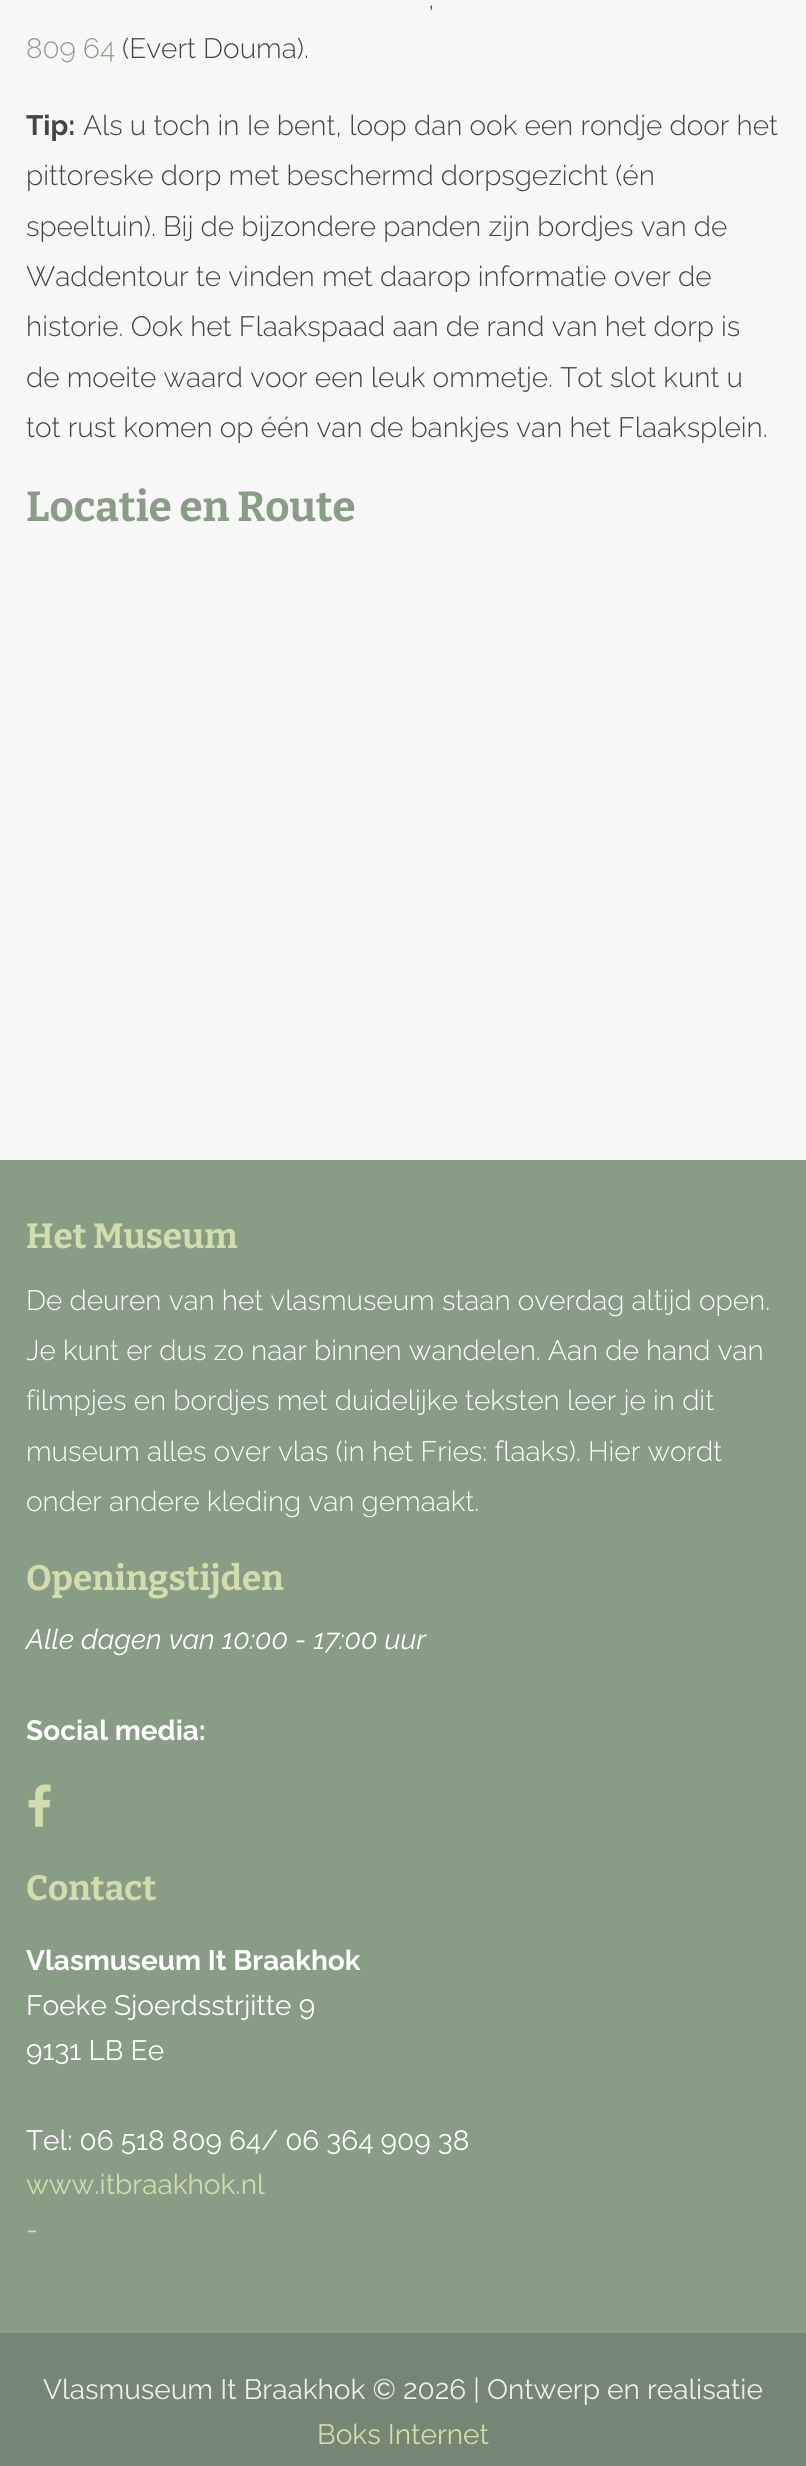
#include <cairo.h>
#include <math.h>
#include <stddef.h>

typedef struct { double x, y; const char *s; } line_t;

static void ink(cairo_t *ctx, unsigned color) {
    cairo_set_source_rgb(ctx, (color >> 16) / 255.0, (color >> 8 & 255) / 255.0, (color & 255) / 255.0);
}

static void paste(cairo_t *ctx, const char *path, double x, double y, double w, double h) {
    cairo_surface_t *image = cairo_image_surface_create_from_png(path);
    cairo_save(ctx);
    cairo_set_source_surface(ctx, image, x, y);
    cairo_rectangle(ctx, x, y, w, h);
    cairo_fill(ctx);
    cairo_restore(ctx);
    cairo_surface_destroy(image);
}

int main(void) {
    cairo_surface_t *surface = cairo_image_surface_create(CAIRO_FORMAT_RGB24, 806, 2466);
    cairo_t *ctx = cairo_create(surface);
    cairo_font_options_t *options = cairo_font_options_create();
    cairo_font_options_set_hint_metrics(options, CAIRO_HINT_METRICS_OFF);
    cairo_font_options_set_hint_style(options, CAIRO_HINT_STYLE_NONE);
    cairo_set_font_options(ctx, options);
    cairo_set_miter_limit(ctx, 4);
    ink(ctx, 0xF7F7F7);
    cairo_paint(ctx);
    cairo_select_font_face(ctx, "Raleway Light", CAIRO_FONT_SLANT_NORMAL, CAIRO_FONT_WEIGHT_NORMAL);
    cairo_set_font_size(ctx, 28);
    ink(ctx, 0x444444);
    cairo_move_to(ctx, 428, 8);
    cairo_show_text(ctx, ",");
    ink(ctx, 0x899C86);
    cairo_move_to(ctx, 26, 58);
    cairo_show_text(ctx, "809 64");
    ink(ctx, 0x444444);
    cairo_move_to(ctx, 122, 58);
    cairo_show_text(ctx, "(Evert Douma).");
    cairo_select_font_face(ctx, "Raleway", CAIRO_FONT_SLANT_NORMAL, CAIRO_FONT_WEIGHT_BOLD);
    cairo_move_to(ctx, 26, 135);
    cairo_show_text(ctx, "Tip:");
    cairo_select_font_face(ctx, "Raleway Light", CAIRO_FONT_SLANT_NORMAL, CAIRO_FONT_WEIGHT_NORMAL);
    {
        static const line_t items[] = {
            {83, 135, "Als u toch in Ie bent, loop dan ook een rondje door het"},
            {26, 185, "pittoreske dorp met beschermd dorpsgezicht (én"},
            {26, 236, "speeltuin). Bij de bijzondere panden zijn bordjes van de"},
            {26, 286, "Waddentour te vinden met daarop informatie over de"},
            {26, 336, "historie. Ook het Flaakspaad aan de rand van het dorp is"},
            {26, 387, "de moeite waard voor een leuk ommetje. Tot slot kunt u"},
            {26, 437, "tot rust komen op één van de bankjes van het Flaaksplein."},
        };
        for (size_t i = 0; i < sizeof items / sizeof *items; i++) {
            cairo_move_to(ctx, items[i].x, items[i].y);
            cairo_show_text(ctx, items[i].s);
        }
    }
    cairo_select_font_face(ctx, "Bitter", CAIRO_FONT_SLANT_NORMAL, CAIRO_FONT_WEIGHT_BOLD);
    cairo_set_font_size(ctx, 42);
    ink(ctx, 0x899C86);
    cairo_move_to(ctx, 26, 521);
    cairo_show_text(ctx, "Locatie en Route");
    cairo_rectangle(ctx, 0, 1160, 806, 1173);
    cairo_fill(ctx);
    cairo_set_font_size(ctx, 35);
    ink(ctx, 0xD2DDAD);
    cairo_move_to(ctx, 26, 1248);
    cairo_show_text(ctx, "Het Museum");
    cairo_select_font_face(ctx, "Raleway Light", CAIRO_FONT_SLANT_NORMAL, CAIRO_FONT_WEIGHT_NORMAL);
    cairo_set_font_size(ctx, 28);
    ink(ctx, 0xFFFFFF);
    {
        static const line_t items[] = {
            {26, 1310, "De deuren van het vlasmuseum staan overdag altijd open."},
            {26, 1360, "Je kunt er dus zo naar binnen wandelen. Aan de hand van"},
            {26, 1410, "filmpjes en bordjes met duidelijke teksten leer je in dit"},
            {26, 1461, "museum alles over vlas (in het Fries: flaaks). Hier wordt"},
            {26, 1511, "onder andere kleding van gemaakt."},
        };
        for (size_t i = 0; i < sizeof items / sizeof *items; i++) {
            cairo_move_to(ctx, items[i].x, items[i].y);
            cairo_show_text(ctx, items[i].s);
        }
    }
    cairo_select_font_face(ctx, "Bitter", CAIRO_FONT_SLANT_NORMAL, CAIRO_FONT_WEIGHT_BOLD);
    cairo_set_font_size(ctx, 35);
    ink(ctx, 0xD2DDAD);
    cairo_move_to(ctx, 26, 1590);
    cairo_show_text(ctx, "Openingstijden");
    cairo_select_font_face(ctx, "Raleway Thin", CAIRO_FONT_SLANT_ITALIC, CAIRO_FONT_WEIGHT_NORMAL);
    cairo_set_font_size(ctx, 28);
    ink(ctx, 0xFFFFFF);
    cairo_move_to(ctx, 26, 1649);
    cairo_show_text(ctx, "Alle dagen van 10:00 - 17:00 uur");
    cairo_select_font_face(ctx, "Raleway", CAIRO_FONT_SLANT_NORMAL, CAIRO_FONT_WEIGHT_BOLD);
    cairo_move_to(ctx, 26, 1740);
    cairo_show_text(ctx, "Social media:");
    paste(ctx, "media/1.png", 28, 1784, 23, 43);
    cairo_select_font_face(ctx, "Bitter", CAIRO_FONT_SLANT_NORMAL, CAIRO_FONT_WEIGHT_BOLD);
    cairo_set_font_size(ctx, 35);
    ink(ctx, 0xD2DDAD);
    cairo_move_to(ctx, 26, 1900);
    cairo_show_text(ctx, "Contact");
    cairo_select_font_face(ctx, "Raleway", CAIRO_FONT_SLANT_NORMAL, CAIRO_FONT_WEIGHT_BOLD);
    cairo_set_font_size(ctx, 28);
    ink(ctx, 0xFFFFFF);
    cairo_move_to(ctx, 26, 1970);
    cairo_show_text(ctx, "Vlasmuseum It Braakhok");
    cairo_select_font_face(ctx, "Raleway", CAIRO_FONT_SLANT_NORMAL, CAIRO_FONT_WEIGHT_NORMAL);
    {
        static const line_t items[] = {
            {26, 2015, "Foeke Sjoerdsstrjitte 9"},
            {26, 2060, "9131 LB Ee"},
            {26, 2150, "Tel: 06 518 809 64/ 06 364 909 38"},
        };
        for (size_t i = 0; i < sizeof items / sizeof *items; i++) {
            cairo_move_to(ctx, items[i].x, items[i].y);
            cairo_show_text(ctx, items[i].s);
        }
    }
    ink(ctx, 0xD2DDAD);
    cairo_move_to(ctx, 26, 2194);
    cairo_show_text(ctx, "www.itbraakhok.nl");
    cairo_move_to(ctx, 26, 2239);
    cairo_show_text(ctx, "-");
    ink(ctx, 0x768675);
    cairo_rectangle(ctx, 0, 2333, 806, 133);
    cairo_fill(ctx);
    ink(ctx, 0xEEEEEE);
    cairo_move_to(ctx, 43, 2399);
    cairo_show_text(ctx, "Vlasmuseum It Braakhok © 2026 | Ontwerp en realisatie");
    ink(ctx, 0xD2DDAD);
    cairo_move_to(ctx, 317, 2444);
    cairo_show_text(ctx, "Boks Internet");
    cairo_surface_write_to_png(surface, "image.png");
    cairo_font_options_destroy(options);
    cairo_destroy(ctx);
    cairo_surface_destroy(surface);
    return 0;
}
